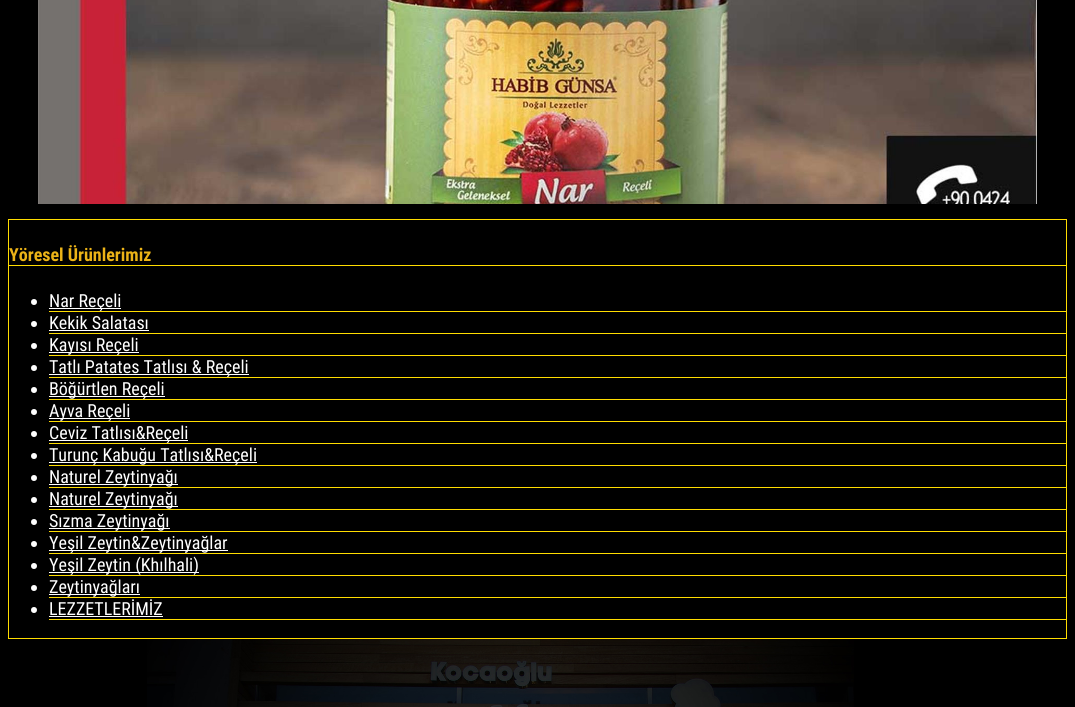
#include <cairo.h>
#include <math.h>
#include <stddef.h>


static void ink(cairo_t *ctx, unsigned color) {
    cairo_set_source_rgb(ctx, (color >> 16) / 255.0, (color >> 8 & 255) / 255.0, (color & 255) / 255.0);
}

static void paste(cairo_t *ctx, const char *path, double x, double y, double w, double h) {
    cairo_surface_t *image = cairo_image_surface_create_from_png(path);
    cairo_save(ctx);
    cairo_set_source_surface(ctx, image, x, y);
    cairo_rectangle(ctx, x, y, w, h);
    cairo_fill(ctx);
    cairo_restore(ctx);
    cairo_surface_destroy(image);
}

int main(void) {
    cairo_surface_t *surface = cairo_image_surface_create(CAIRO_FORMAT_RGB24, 1075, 707);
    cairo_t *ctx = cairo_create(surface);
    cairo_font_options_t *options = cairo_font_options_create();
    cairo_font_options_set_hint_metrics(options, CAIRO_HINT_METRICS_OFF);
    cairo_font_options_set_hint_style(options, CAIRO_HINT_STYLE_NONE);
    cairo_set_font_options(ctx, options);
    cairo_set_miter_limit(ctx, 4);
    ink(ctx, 0x000000);
    cairo_paint(ctx);
    paste(ctx, "media/1.png", 38, 0, 999, 204);
    cairo_rectangle(ctx, 8.5, 219.5, 1058, 419);
    ink(ctx, 0xFFDD00);
    cairo_set_line_width(ctx, 1);
    cairo_stroke(ctx);
    cairo_rectangle(ctx, 9, 265, 1057, 1);
    cairo_fill(ctx);
    cairo_select_font_face(ctx, "Roboto Condensed", CAIRO_FONT_SLANT_NORMAL, CAIRO_FONT_WEIGHT_BOLD);
    cairo_set_font_size(ctx, 18);
    ink(ctx, 0xECB317);
    cairo_move_to(ctx, 9, 261);
    cairo_show_text(ctx, "Yöresel Ürünlerimiz");
    ink(ctx, 0xFFDD00);
    cairo_rectangle(ctx, 49, 311, 1017, 1);
    cairo_fill(ctx);
    ink(ctx, 0xFFFFFF);
    cairo_arc(ctx, 34, 302, 3, 0, 2 * M_PI);
    cairo_fill(ctx);
    cairo_rectangle(ctx, 49, 308, 72, 1);
    cairo_fill(ctx);
    cairo_select_font_face(ctx, "Roboto Condensed", CAIRO_FONT_SLANT_NORMAL, CAIRO_FONT_WEIGHT_NORMAL);
    cairo_move_to(ctx, 49, 307);
    cairo_show_text(ctx, "Nar Reçeli");
    ink(ctx, 0xFFDD00);
    cairo_rectangle(ctx, 49, 333, 1017, 1);
    cairo_fill(ctx);
    ink(ctx, 0xFFFFFF);
    cairo_arc(ctx, 34, 324, 3, 0, 2 * M_PI);
    cairo_fill(ctx);
    cairo_move_to(ctx, 49, 329);
    cairo_show_text(ctx, "Kekik Salatası");
    cairo_rectangle(ctx, 49, 330, 100, 1);
    cairo_fill(ctx);
    ink(ctx, 0xFFDD00);
    cairo_rectangle(ctx, 49, 355, 1017, 1);
    cairo_fill(ctx);
    ink(ctx, 0xFFFFFF);
    cairo_arc(ctx, 34, 346, 3, 0, 2 * M_PI);
    cairo_fill(ctx);
    cairo_rectangle(ctx, 49, 352, 90, 1);
    cairo_fill(ctx);
    cairo_move_to(ctx, 49, 351);
    cairo_show_text(ctx, "Kayısı Reçeli");
    ink(ctx, 0xFFDD00);
    cairo_rectangle(ctx, 49, 377, 1017, 1);
    cairo_fill(ctx);
    ink(ctx, 0xFFFFFF);
    cairo_arc(ctx, 34, 368, 3, 0, 2 * M_PI);
    cairo_fill(ctx);
    cairo_rectangle(ctx, 49, 374, 200, 1);
    cairo_fill(ctx);
    cairo_move_to(ctx, 49, 373);
    cairo_show_text(ctx, "Tatlı Patates Tatlısı & Reçeli");
    ink(ctx, 0xFFDD00);
    cairo_rectangle(ctx, 49, 399, 1017, 1);
    cairo_fill(ctx);
    ink(ctx, 0xFFFFFF);
    cairo_arc(ctx, 34, 390, 3, 0, 2 * M_PI);
    cairo_fill(ctx);
    cairo_rectangle(ctx, 49, 396, 116, 1);
    cairo_fill(ctx);
    cairo_move_to(ctx, 49, 395);
    cairo_show_text(ctx, "Böğürtlen Reçeli");
    ink(ctx, 0xFFDD00);
    cairo_rectangle(ctx, 49, 421, 1017, 1);
    cairo_fill(ctx);
    ink(ctx, 0xFFFFFF);
    cairo_arc(ctx, 34, 412, 3, 0, 2 * M_PI);
    cairo_fill(ctx);
    cairo_rectangle(ctx, 49, 418, 81, 1);
    cairo_fill(ctx);
    cairo_move_to(ctx, 49, 417);
    cairo_show_text(ctx, "Ayva Reçeli");
    ink(ctx, 0xFFDD00);
    cairo_rectangle(ctx, 49, 443, 1017, 1);
    cairo_fill(ctx);
    ink(ctx, 0xFFFFFF);
    cairo_arc(ctx, 34, 434, 3, 0, 2 * M_PI);
    cairo_fill(ctx);
    cairo_rectangle(ctx, 49, 440, 139, 1);
    cairo_fill(ctx);
    cairo_move_to(ctx, 49, 439);
    cairo_show_text(ctx, "Ceviz Tatlısı&Reçeli");
    ink(ctx, 0xFFDD00);
    cairo_rectangle(ctx, 49, 465, 1017, 1);
    cairo_fill(ctx);
    ink(ctx, 0xFFFFFF);
    cairo_arc(ctx, 34, 456, 3, 0, 2 * M_PI);
    cairo_fill(ctx);
    cairo_rectangle(ctx, 49, 462, 208, 1);
    cairo_fill(ctx);
    cairo_move_to(ctx, 49, 461);
    cairo_show_text(ctx, "Turunç Kabuğu Tatlısı&Reçeli");
    ink(ctx, 0xFFDD00);
    cairo_rectangle(ctx, 49, 487, 1017, 1);
    cairo_fill(ctx);
    ink(ctx, 0xFFFFFF);
    cairo_arc(ctx, 34, 478, 3, 0, 2 * M_PI);
    cairo_fill(ctx);
    cairo_rectangle(ctx, 49, 484, 129, 1);
    cairo_fill(ctx);
    cairo_move_to(ctx, 49, 483);
    cairo_show_text(ctx, "Naturel Zeytinyağı");
    ink(ctx, 0xFFDD00);
    cairo_rectangle(ctx, 49, 509, 1017, 1);
    cairo_fill(ctx);
    ink(ctx, 0xFFFFFF);
    cairo_arc(ctx, 34, 500, 3, 0, 2 * M_PI);
    cairo_fill(ctx);
    cairo_rectangle(ctx, 49, 506, 129, 1);
    cairo_fill(ctx);
    cairo_move_to(ctx, 49, 505);
    cairo_show_text(ctx, "Naturel Zeytinyağı");
    ink(ctx, 0xFFDD00);
    cairo_rectangle(ctx, 49, 531, 1017, 1);
    cairo_fill(ctx);
    ink(ctx, 0xFFFFFF);
    cairo_arc(ctx, 34, 522, 3, 0, 2 * M_PI);
    cairo_fill(ctx);
    cairo_rectangle(ctx, 49, 528, 121, 1);
    cairo_fill(ctx);
    cairo_move_to(ctx, 49, 527);
    cairo_show_text(ctx, "Sızma Zeytinyağı");
    ink(ctx, 0xFFDD00);
    cairo_rectangle(ctx, 49, 553, 1017, 1);
    cairo_fill(ctx);
    ink(ctx, 0xFFFFFF);
    cairo_arc(ctx, 34, 544, 3, 0, 2 * M_PI);
    cairo_fill(ctx);
    cairo_rectangle(ctx, 49, 550, 179, 1);
    cairo_fill(ctx);
    cairo_move_to(ctx, 49, 549);
    cairo_show_text(ctx, "Yeşil Zeytin&Zeytinyağlar");
    ink(ctx, 0xFFDD00);
    cairo_rectangle(ctx, 49, 575, 1017, 1);
    cairo_fill(ctx);
    ink(ctx, 0xFFFFFF);
    cairo_arc(ctx, 34, 566, 3, 0, 2 * M_PI);
    cairo_fill(ctx);
    cairo_rectangle(ctx, 49, 572, 150, 1);
    cairo_fill(ctx);
    cairo_move_to(ctx, 49, 571);
    cairo_show_text(ctx, "Yeşil Zeytin (Khılhali)");
    ink(ctx, 0xFFDD00);
    cairo_rectangle(ctx, 49, 597, 1017, 1);
    cairo_fill(ctx);
    ink(ctx, 0xFFFFFF);
    cairo_arc(ctx, 34, 588, 3, 0, 2 * M_PI);
    cairo_fill(ctx);
    cairo_rectangle(ctx, 49, 594, 91, 1);
    cairo_fill(ctx);
    cairo_move_to(ctx, 49, 593);
    cairo_show_text(ctx, "Zeytinyağları");
    ink(ctx, 0xFFDD00);
    cairo_rectangle(ctx, 49, 619, 1017, 1);
    cairo_fill(ctx);
    ink(ctx, 0xFFFFFF);
    cairo_arc(ctx, 34, 610, 3, 0, 2 * M_PI);
    cairo_fill(ctx);
    cairo_move_to(ctx, 49, 615);
    cairo_show_text(ctx, "LEZZETLERİMİZ");
    cairo_rectangle(ctx, 49, 616, 114, 1);
    cairo_fill(ctx);
    paste(ctx, "media/2.png", 147, 639, 707, 68);
    cairo_surface_write_to_png(surface, "image.png");
    cairo_font_options_destroy(options);
    cairo_destroy(ctx);
    cairo_surface_destroy(surface);
    return 0;
}
